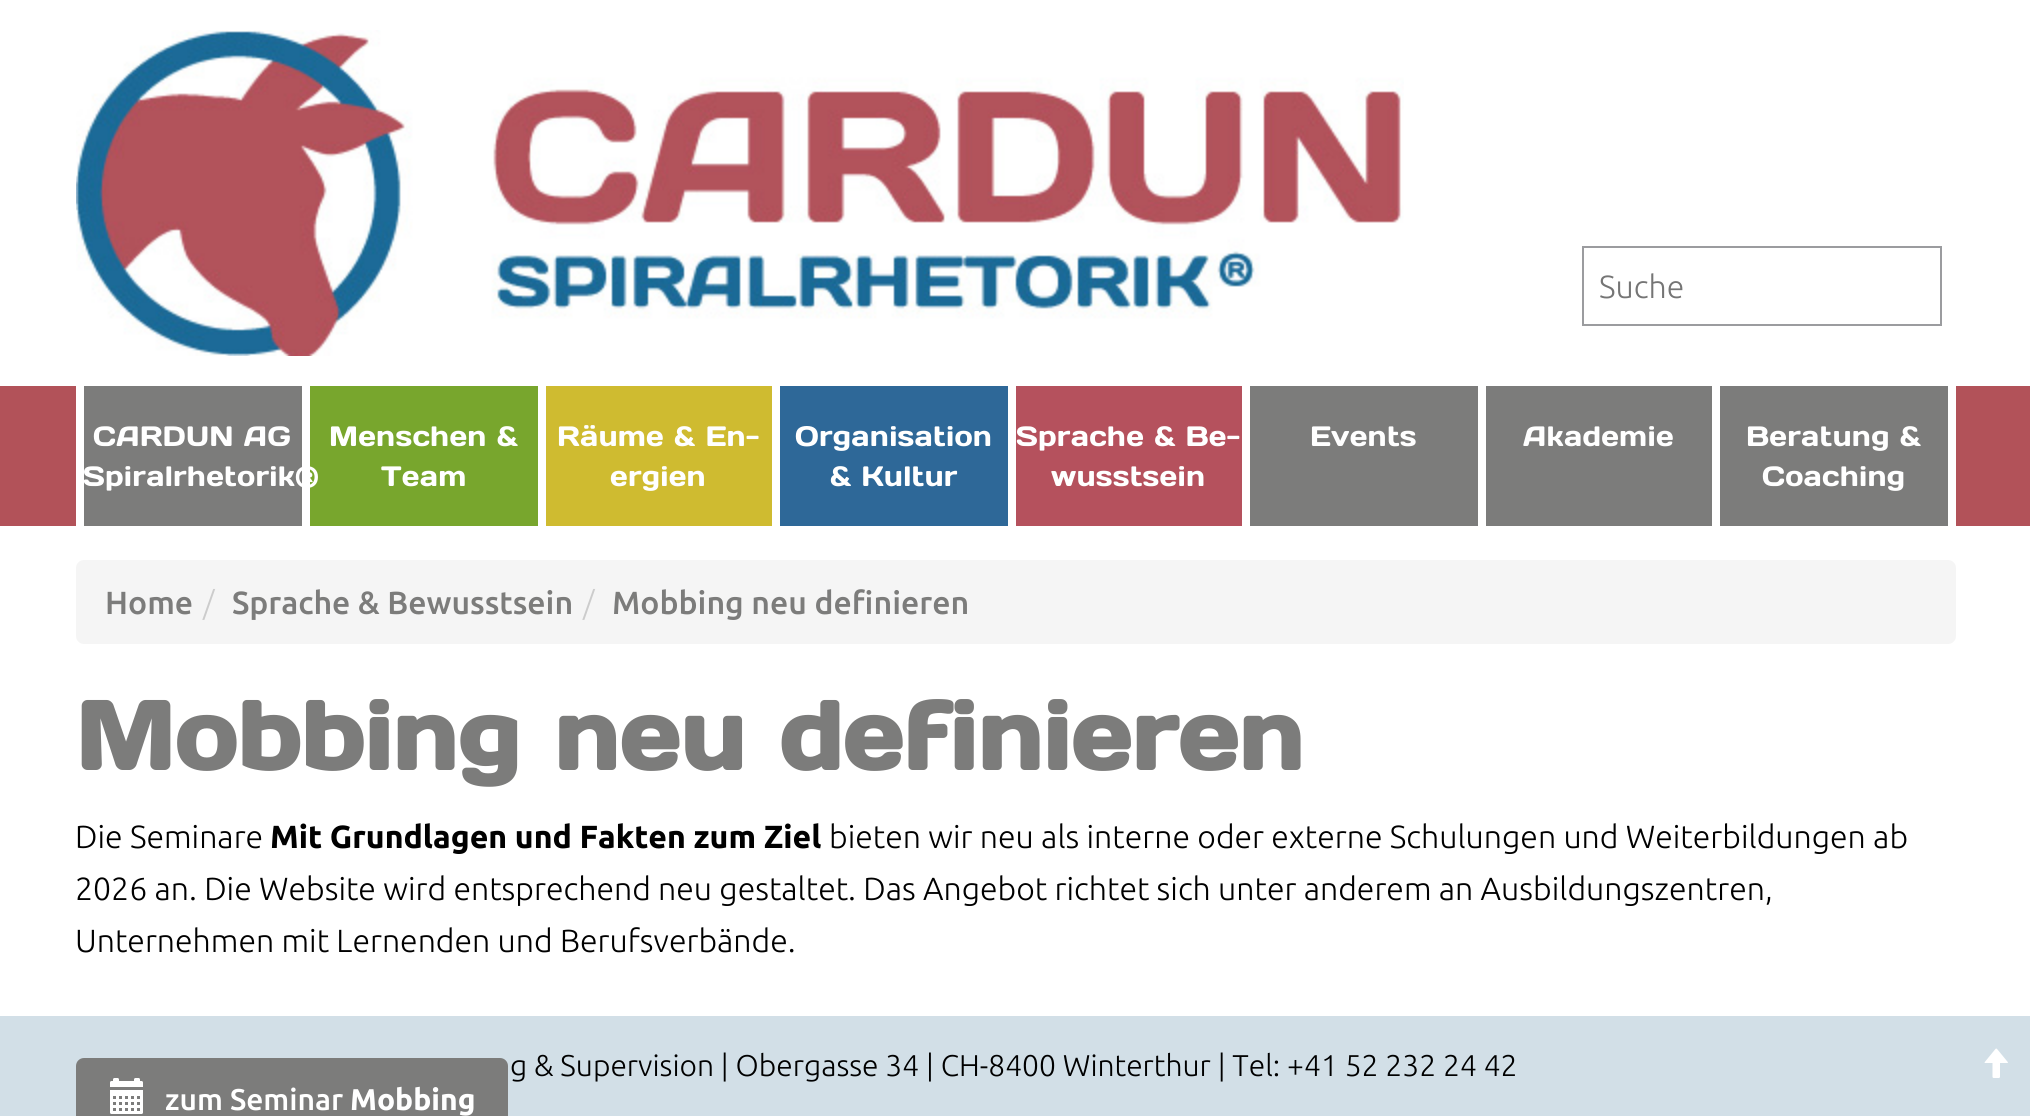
#include <cairo.h>
#include <math.h>
#include <stddef.h>

typedef struct { double x, y; const char *s; } line_t;
typedef struct { double x, y, w, h; unsigned color; } box_t;

static void ink(cairo_t *ctx, unsigned color) {
    cairo_set_source_rgb(ctx, (color >> 16) / 255.0, (color >> 8 & 255) / 255.0, (color & 255) / 255.0);
}

static void write_spaced(cairo_t *ctx, double x, double y, const char *s, double letter, double word) {
    cairo_move_to(ctx, x, y);
    while (*s) {
        char ch[5] = {0};
        int n = 0;
        do ch[n++] = *s++; while ((*s & 0xC0) == 0x80);
        cairo_show_text(ctx, ch);
        cairo_rel_move_to(ctx, letter + word * (*ch == ' '), 0);
    }
}

static void round_path(cairo_t *ctx, double x, double y, double w, double h, double r) {
    cairo_new_sub_path(ctx);
    cairo_arc(ctx, x + w - r, y + h - r, r, 0, M_PI / 2);
    cairo_arc(ctx, x + r, y + h - r, r, M_PI / 2, M_PI);
    cairo_arc(ctx, x + r, y + r, r, M_PI, 1.5 * M_PI);
    cairo_arc(ctx, x + w - r, y + r, r, 1.5 * M_PI, 2 * M_PI);
    cairo_close_path(ctx);
}

static void paste(cairo_t *ctx, const char *path, double x, double y, double w, double h) {
    cairo_surface_t *image = cairo_image_surface_create_from_png(path);
    cairo_save(ctx);
    cairo_set_source_surface(ctx, image, x, y);
    cairo_rectangle(ctx, x, y, w, h);
    cairo_fill(ctx);
    cairo_restore(ctx);
    cairo_surface_destroy(image);
}

int main(void) {
    cairo_surface_t *surface = cairo_image_surface_create(CAIRO_FORMAT_RGB24, 2030, 1116);
    cairo_t *ctx = cairo_create(surface);
    cairo_font_options_t *options = cairo_font_options_create();
    cairo_font_options_set_hint_metrics(options, CAIRO_HINT_METRICS_OFF);
    cairo_font_options_set_hint_style(options, CAIRO_HINT_STYLE_NONE);
    cairo_set_font_options(ctx, options);
    cairo_set_miter_limit(ctx, 4);
    ink(ctx, 0xFFFFFF);
    cairo_paint(ctx);
    paste(ctx, "media/1.png", 76, 30, 1328, 326);
    cairo_rectangle(ctx, 1583, 247, 358, 78);
    ink(ctx, 0x9B9C9F);
    cairo_stroke(ctx);
    cairo_select_font_face(ctx, "Ubuntu Light", CAIRO_FONT_SLANT_NORMAL, CAIRO_FONT_WEIGHT_NORMAL);
    cairo_set_font_size(ctx, 32);
    ink(ctx, 0x757575);
    cairo_move_to(ctx, 1599, 298);
    cairo_show_text(ctx, "Suche");
    {
        static const box_t items[] = {
            {0, 386, 2030, 140, 0xB25259},
            {84, 386, 218, 140, 0x7C7C7B},
            {302, 386, 8, 140, 0xFFFFFF},
            {76, 386, 8, 140, 0xFFFFFF},
        };
        for (size_t i = 0; i < sizeof items / sizeof *items; i++) {
            ink(ctx, items[i].color);
            cairo_rectangle(ctx, items[i].x, items[i].y, items[i].w, items[i].h);
            cairo_fill(ctx);
        }
    }
    cairo_select_font_face(ctx, "Days One", CAIRO_FONT_SLANT_NORMAL, CAIRO_FONT_WEIGHT_NORMAL);
    cairo_set_font_size(ctx, 28);
    write_spaced(ctx, 93, 446, "CARDUN AG", 0.25, 0);
    ink(ctx, 0x78A62D);
    cairo_rectangle(ctx, 310, 386, 228, 140);
    cairo_fill(ctx);
    ink(ctx, 0xFFFFFF);
    write_spaced(ctx, 83, 486, "Spiralrhetorik®", 0.25, 0);
    cairo_rectangle(ctx, 538, 386, 8, 140);
    cairo_fill(ctx);
    write_spaced(ctx, 329, 446, "Menschen &", 0.25, 0);
    write_spaced(ctx, 381, 486, "Team", 0.25, 0);
    ink(ctx, 0xCFBB30);
    cairo_rectangle(ctx, 546, 386, 226, 140);
    cairo_fill(ctx);
    ink(ctx, 0xFFFFFF);
    cairo_rectangle(ctx, 772, 386, 8, 140);
    cairo_fill(ctx);
    write_spaced(ctx, 557, 446, "Räume & En-", 0.25, 0);
    write_spaced(ctx, 610, 486, "ergien", 0.25, 0);
    ink(ctx, 0x2E6898);
    cairo_rectangle(ctx, 780, 386, 228, 140);
    cairo_fill(ctx);
    ink(ctx, 0xFFFFFF);
    cairo_rectangle(ctx, 1008, 386, 8, 140);
    cairo_fill(ctx);
    write_spaced(ctx, 795, 446, "Organisation", 0.25, 0);
    write_spaced(ctx, 830, 486, "& Kultur", 0.25, 0);
    ink(ctx, 0xB5515D);
    cairo_rectangle(ctx, 1016, 386, 226, 140);
    cairo_fill(ctx);
    ink(ctx, 0xFFFFFF);
    cairo_rectangle(ctx, 1242, 386, 8, 140);
    cairo_fill(ctx);
    write_spaced(ctx, 1016, 446, "Sprache & Be-", 0.25, 0);
    write_spaced(ctx, 1051, 486, "wusstsein", 0.25, 0);
    ink(ctx, 0x7C7C7B);
    cairo_rectangle(ctx, 1250, 386, 228, 140);
    cairo_fill(ctx);
    ink(ctx, 0xFFFFFF);
    cairo_rectangle(ctx, 1478, 386, 8, 140);
    cairo_fill(ctx);
    write_spaced(ctx, 1310, 446, "Events", 0.25, 0);
    ink(ctx, 0x7C7C7B);
    cairo_rectangle(ctx, 1486, 386, 226, 140);
    cairo_fill(ctx);
    ink(ctx, 0xFFFFFF);
    cairo_rectangle(ctx, 1712, 386, 8, 140);
    cairo_fill(ctx);
    write_spaced(ctx, 1523, 446, "Akademie", 0.25, 0);
    ink(ctx, 0x7C7C7B);
    cairo_rectangle(ctx, 1720, 386, 228, 140);
    cairo_fill(ctx);
    ink(ctx, 0xFFFFFF);
    cairo_rectangle(ctx, 1948, 386, 8, 140);
    cairo_fill(ctx);
    write_spaced(ctx, 1746, 446, "Beratung &", 0.25, 0);
    write_spaced(ctx, 1762, 486, "Coaching", 0.25, 0);
    ink(ctx, 0xF5F5F5);
    round_path(ctx, 76, 560, 1880, 84, 8);
    cairo_fill(ctx);
    cairo_select_font_face(ctx, "Ubuntu Medium", CAIRO_FONT_SLANT_NORMAL, CAIRO_FONT_WEIGHT_NORMAL);
    cairo_set_font_size(ctx, 32);
    ink(ctx, 0x7C7C7B);
    cairo_move_to(ctx, 105, 614);
    cairo_show_text(ctx, "Home");
    cairo_select_font_face(ctx, "Ubuntu Light", CAIRO_FONT_SLANT_NORMAL, CAIRO_FONT_WEIGHT_NORMAL);
    ink(ctx, 0xCCCCCC);
    cairo_move_to(ctx, 203, 614);
    cairo_show_text(ctx, "/");
    cairo_select_font_face(ctx, "Ubuntu Medium", CAIRO_FONT_SLANT_NORMAL, CAIRO_FONT_WEIGHT_NORMAL);
    ink(ctx, 0x7C7C7B);
    cairo_move_to(ctx, 232, 614);
    cairo_show_text(ctx, "Sprache & Bewusstsein");
    cairo_select_font_face(ctx, "Ubuntu Light", CAIRO_FONT_SLANT_NORMAL, CAIRO_FONT_WEIGHT_NORMAL);
    ink(ctx, 0xCCCCCC);
    cairo_move_to(ctx, 583, 614);
    cairo_show_text(ctx, "/");
    cairo_select_font_face(ctx, "Ubuntu Medium", CAIRO_FONT_SLANT_NORMAL, CAIRO_FONT_WEIGHT_NORMAL);
    ink(ctx, 0x7C7C7B);
    cairo_move_to(ctx, 612, 614);
    cairo_show_text(ctx, "Mobbing neu definieren");
    cairo_select_font_face(ctx, "Days One", CAIRO_FONT_SLANT_NORMAL, CAIRO_FONT_WEIGHT_BOLD);
    cairo_set_font_size(ctx, 96);
    cairo_move_to(ctx, 75, 770);
    cairo_show_text(ctx, "Mobbing neu definieren");
    cairo_select_font_face(ctx, "Ubuntu Light", CAIRO_FONT_SLANT_NORMAL, CAIRO_FONT_WEIGHT_NORMAL);
    cairo_set_font_size(ctx, 32);
    ink(ctx, 0x000000);
    cairo_move_to(ctx, 75, 848);
    cairo_show_text(ctx, "Die Seminare");
    cairo_select_font_face(ctx, "Ubuntu", CAIRO_FONT_SLANT_NORMAL, CAIRO_FONT_WEIGHT_BOLD);
    cairo_move_to(ctx, 270, 848);
    cairo_show_text(ctx, "Mit Grundlagen und Fakten zum Ziel");
    cairo_select_font_face(ctx, "Ubuntu Light", CAIRO_FONT_SLANT_NORMAL, CAIRO_FONT_WEIGHT_NORMAL);
    {
        static const line_t items[] = {
            {829, 848, "bieten wir neu als interne oder externe Schulungen und Weiterbildungen ab"},
            {75, 900, "2026 an. Die Website wird entsprechend neu gestaltet. Das Angebot richtet sich unter anderem an Ausbildungszentren,"},
            {75, 952, "Unternehmen mit Lernenden und Berufsverbände."},
        };
        for (size_t i = 0; i < sizeof items / sizeof *items; i++) {
            cairo_move_to(ctx, items[i].x, items[i].y);
            cairo_show_text(ctx, items[i].s);
        }
    }
    cairo_set_source_rgba(ctx, 0.804, 0.863, 0.898, 0.9);
    cairo_rectangle(ctx, 0, 1016, 2030, 100);
    cairo_fill(ctx);
    ink(ctx, 0x7C7C7B);
    round_path(ctx, 77, 1059, 430, 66, 7);
    cairo_fill_preserve(ctx);
    cairo_stroke(ctx);
    paste(ctx, "media/2.png", 110, 1078, 33, 36);
    cairo_select_font_face(ctx, "Ubuntu Medium", CAIRO_FONT_SLANT_NORMAL, CAIRO_FONT_WEIGHT_NORMAL);
    cairo_set_font_size(ctx, 30);
    ink(ctx, 0xFFFFFF);
    cairo_move_to(ctx, 165, 1110);
    cairo_show_text(ctx, "zum Seminar");
    cairo_select_font_face(ctx, "Ubuntu", CAIRO_FONT_SLANT_NORMAL, CAIRO_FONT_WEIGHT_BOLD);
    cairo_move_to(ctx, 350, 1110);
    cairo_show_text(ctx, "Mobbing");
    cairo_select_font_face(ctx, "Ubuntu Light", CAIRO_FONT_SLANT_NORMAL, CAIRO_FONT_WEIGHT_NORMAL);
    ink(ctx, 0x000000);
    cairo_move_to(ctx, 510, 1076);
    cairo_show_text(ctx, "g & Supervision | Obergasse 34 | CH-8400 Winterthur | Tel: +41 52 232 24 42");
    paste(ctx, "media/3.png", 1984, 1048, 24, 30);
    cairo_surface_write_to_png(surface, "image.png");
    cairo_font_options_destroy(options);
    cairo_destroy(ctx);
    cairo_surface_destroy(surface);
    return 0;
}
